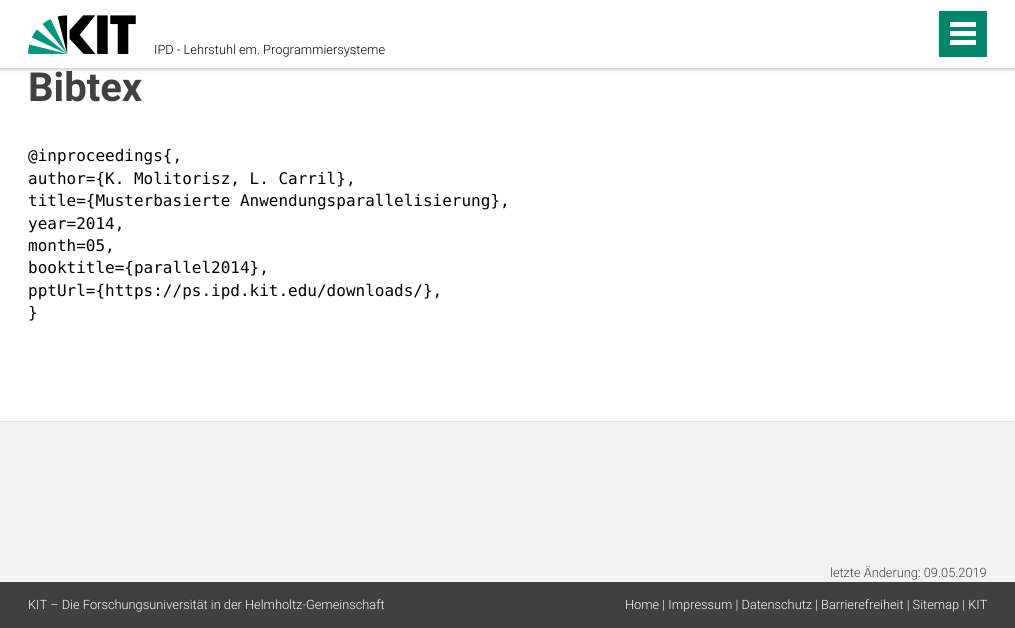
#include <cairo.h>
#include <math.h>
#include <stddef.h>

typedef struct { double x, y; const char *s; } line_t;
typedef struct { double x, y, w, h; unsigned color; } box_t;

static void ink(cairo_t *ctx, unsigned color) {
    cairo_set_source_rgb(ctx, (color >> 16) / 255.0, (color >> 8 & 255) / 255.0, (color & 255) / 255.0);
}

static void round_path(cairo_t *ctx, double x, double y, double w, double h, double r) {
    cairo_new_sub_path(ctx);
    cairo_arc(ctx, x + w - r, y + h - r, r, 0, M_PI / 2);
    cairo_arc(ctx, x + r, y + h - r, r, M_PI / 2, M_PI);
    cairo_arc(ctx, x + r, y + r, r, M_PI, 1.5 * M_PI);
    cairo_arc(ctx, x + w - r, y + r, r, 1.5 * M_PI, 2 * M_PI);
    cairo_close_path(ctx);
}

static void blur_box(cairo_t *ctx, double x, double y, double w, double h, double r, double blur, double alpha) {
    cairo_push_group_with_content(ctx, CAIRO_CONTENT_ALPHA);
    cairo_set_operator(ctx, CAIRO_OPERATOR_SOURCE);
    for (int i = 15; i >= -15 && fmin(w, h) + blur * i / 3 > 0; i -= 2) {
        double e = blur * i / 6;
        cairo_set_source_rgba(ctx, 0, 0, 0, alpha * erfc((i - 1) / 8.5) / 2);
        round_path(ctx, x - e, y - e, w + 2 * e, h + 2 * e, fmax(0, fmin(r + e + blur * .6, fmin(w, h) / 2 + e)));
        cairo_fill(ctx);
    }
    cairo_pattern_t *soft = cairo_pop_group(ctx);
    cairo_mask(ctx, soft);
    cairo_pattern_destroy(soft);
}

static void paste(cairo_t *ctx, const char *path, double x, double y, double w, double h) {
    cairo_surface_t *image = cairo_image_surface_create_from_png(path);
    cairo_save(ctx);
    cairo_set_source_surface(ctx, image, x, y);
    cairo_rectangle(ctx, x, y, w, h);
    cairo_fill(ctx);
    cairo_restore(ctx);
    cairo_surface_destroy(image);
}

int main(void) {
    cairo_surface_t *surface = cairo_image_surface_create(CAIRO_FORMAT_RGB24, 1015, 628);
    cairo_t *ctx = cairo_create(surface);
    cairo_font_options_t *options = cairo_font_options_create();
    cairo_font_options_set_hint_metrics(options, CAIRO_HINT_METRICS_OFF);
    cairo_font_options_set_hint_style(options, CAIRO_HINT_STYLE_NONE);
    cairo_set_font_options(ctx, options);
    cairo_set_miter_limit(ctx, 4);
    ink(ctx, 0xFFFFFF);
    cairo_paint(ctx);
    ink(ctx, 0x404040);
    blur_box(ctx, 0, 0, 1015, 68, 0, 2.5, 0.5);
    ink(ctx, 0xFFFFFF);
    cairo_rectangle(ctx, 0, 0, 1015, 68);
    cairo_fill(ctx);
    paste(ctx, "media/1.png", 28, 15, 108, 39);
    cairo_select_font_face(ctx, "Roboto Light", CAIRO_FONT_SLANT_NORMAL, CAIRO_FONT_WEIGHT_NORMAL);
    cairo_set_font_size(ctx, 12.8);
    ink(ctx, 0x000000);
    cairo_move_to(ctx, 154, 54);
    cairo_show_text(ctx, "IPD - Lehrstuhl em. Programmiersysteme");
    {
        static const box_t items[] = {
            {939, 11, 48, 46, 0x00876C},
            {950, 40, 26, 5, 0xFFFFFF},
            {950, 31, 26, 5, 0xFFFFFF},
            {950, 22, 26, 5, 0xFFFFFF},
        };
        for (size_t i = 0; i < sizeof items / sizeof *items; i++) {
            ink(ctx, items[i].color);
            cairo_rectangle(ctx, items[i].x, items[i].y, items[i].w, items[i].h);
            cairo_fill(ctx);
        }
    }
    cairo_select_font_face(ctx, "Roboto", CAIRO_FONT_SLANT_NORMAL, CAIRO_FONT_WEIGHT_BOLD);
    cairo_set_font_size(ctx, 40);
    ink(ctx, 0x404040);
    cairo_move_to(ctx, 28, 101);
    cairo_show_text(ctx, "Bibtex");
    cairo_select_font_face(ctx, "DejaVu Sans Mono", CAIRO_FONT_SLANT_NORMAL, CAIRO_FONT_WEIGHT_NORMAL);
    cairo_set_font_size(ctx, 16);
    ink(ctx, 0x000000);
    {
        static const line_t items[] = {
            {28, 161, "@inproceedings{,"},
            {28, 184, "author={K. Molitorisz, L. Carril},"},
            {28, 206, "title={Musterbasierte Anwendungsparallelisierung},"},
            {28, 229, "year=2014,"},
            {28, 251, "month=05,"},
            {28, 273, "booktitle={parallel2014},"},
            {28, 296, "pptUrl={https://ps.ipd.kit.edu/downloads/},"},
            {28, 318, "}"},
        };
        for (size_t i = 0; i < sizeof items / sizeof *items; i++) {
            cairo_move_to(ctx, items[i].x, items[i].y);
            cairo_show_text(ctx, items[i].s);
        }
    }
    ink(ctx, 0xF2F2F2);
    cairo_rectangle(ctx, 0, 422, 1015, 160);
    cairo_fill(ctx);
    ink(ctx, 0xE6E6E6);
    cairo_rectangle(ctx, 0, 421, 1015, 1);
    cairo_fill(ctx);
    cairo_select_font_face(ctx, "Roboto Light", CAIRO_FONT_SLANT_NORMAL, CAIRO_FONT_WEIGHT_NORMAL);
    cairo_set_font_size(ctx, 12.8);
    ink(ctx, 0x404040);
    cairo_move_to(ctx, 830, 577);
    cairo_show_text(ctx, "letzte Änderung: 09.05.2019");
    cairo_rectangle(ctx, 0, 582, 1015, 46);
    cairo_fill(ctx);
    ink(ctx, 0xFFFFFF);
    cairo_move_to(ctx, 28, 609);
    cairo_show_text(ctx, "KIT – Die Forschungsuniversität in der Helmholtz-Gemeinschaft");
    cairo_move_to(ctx, 625, 609);
    cairo_show_text(ctx, "Home | Impressum | Datenschutz | Barrierefreiheit | Sitemap | KIT");
    cairo_surface_write_to_png(surface, "image.png");
    cairo_font_options_destroy(options);
    cairo_destroy(ctx);
    cairo_surface_destroy(surface);
    return 0;
}
